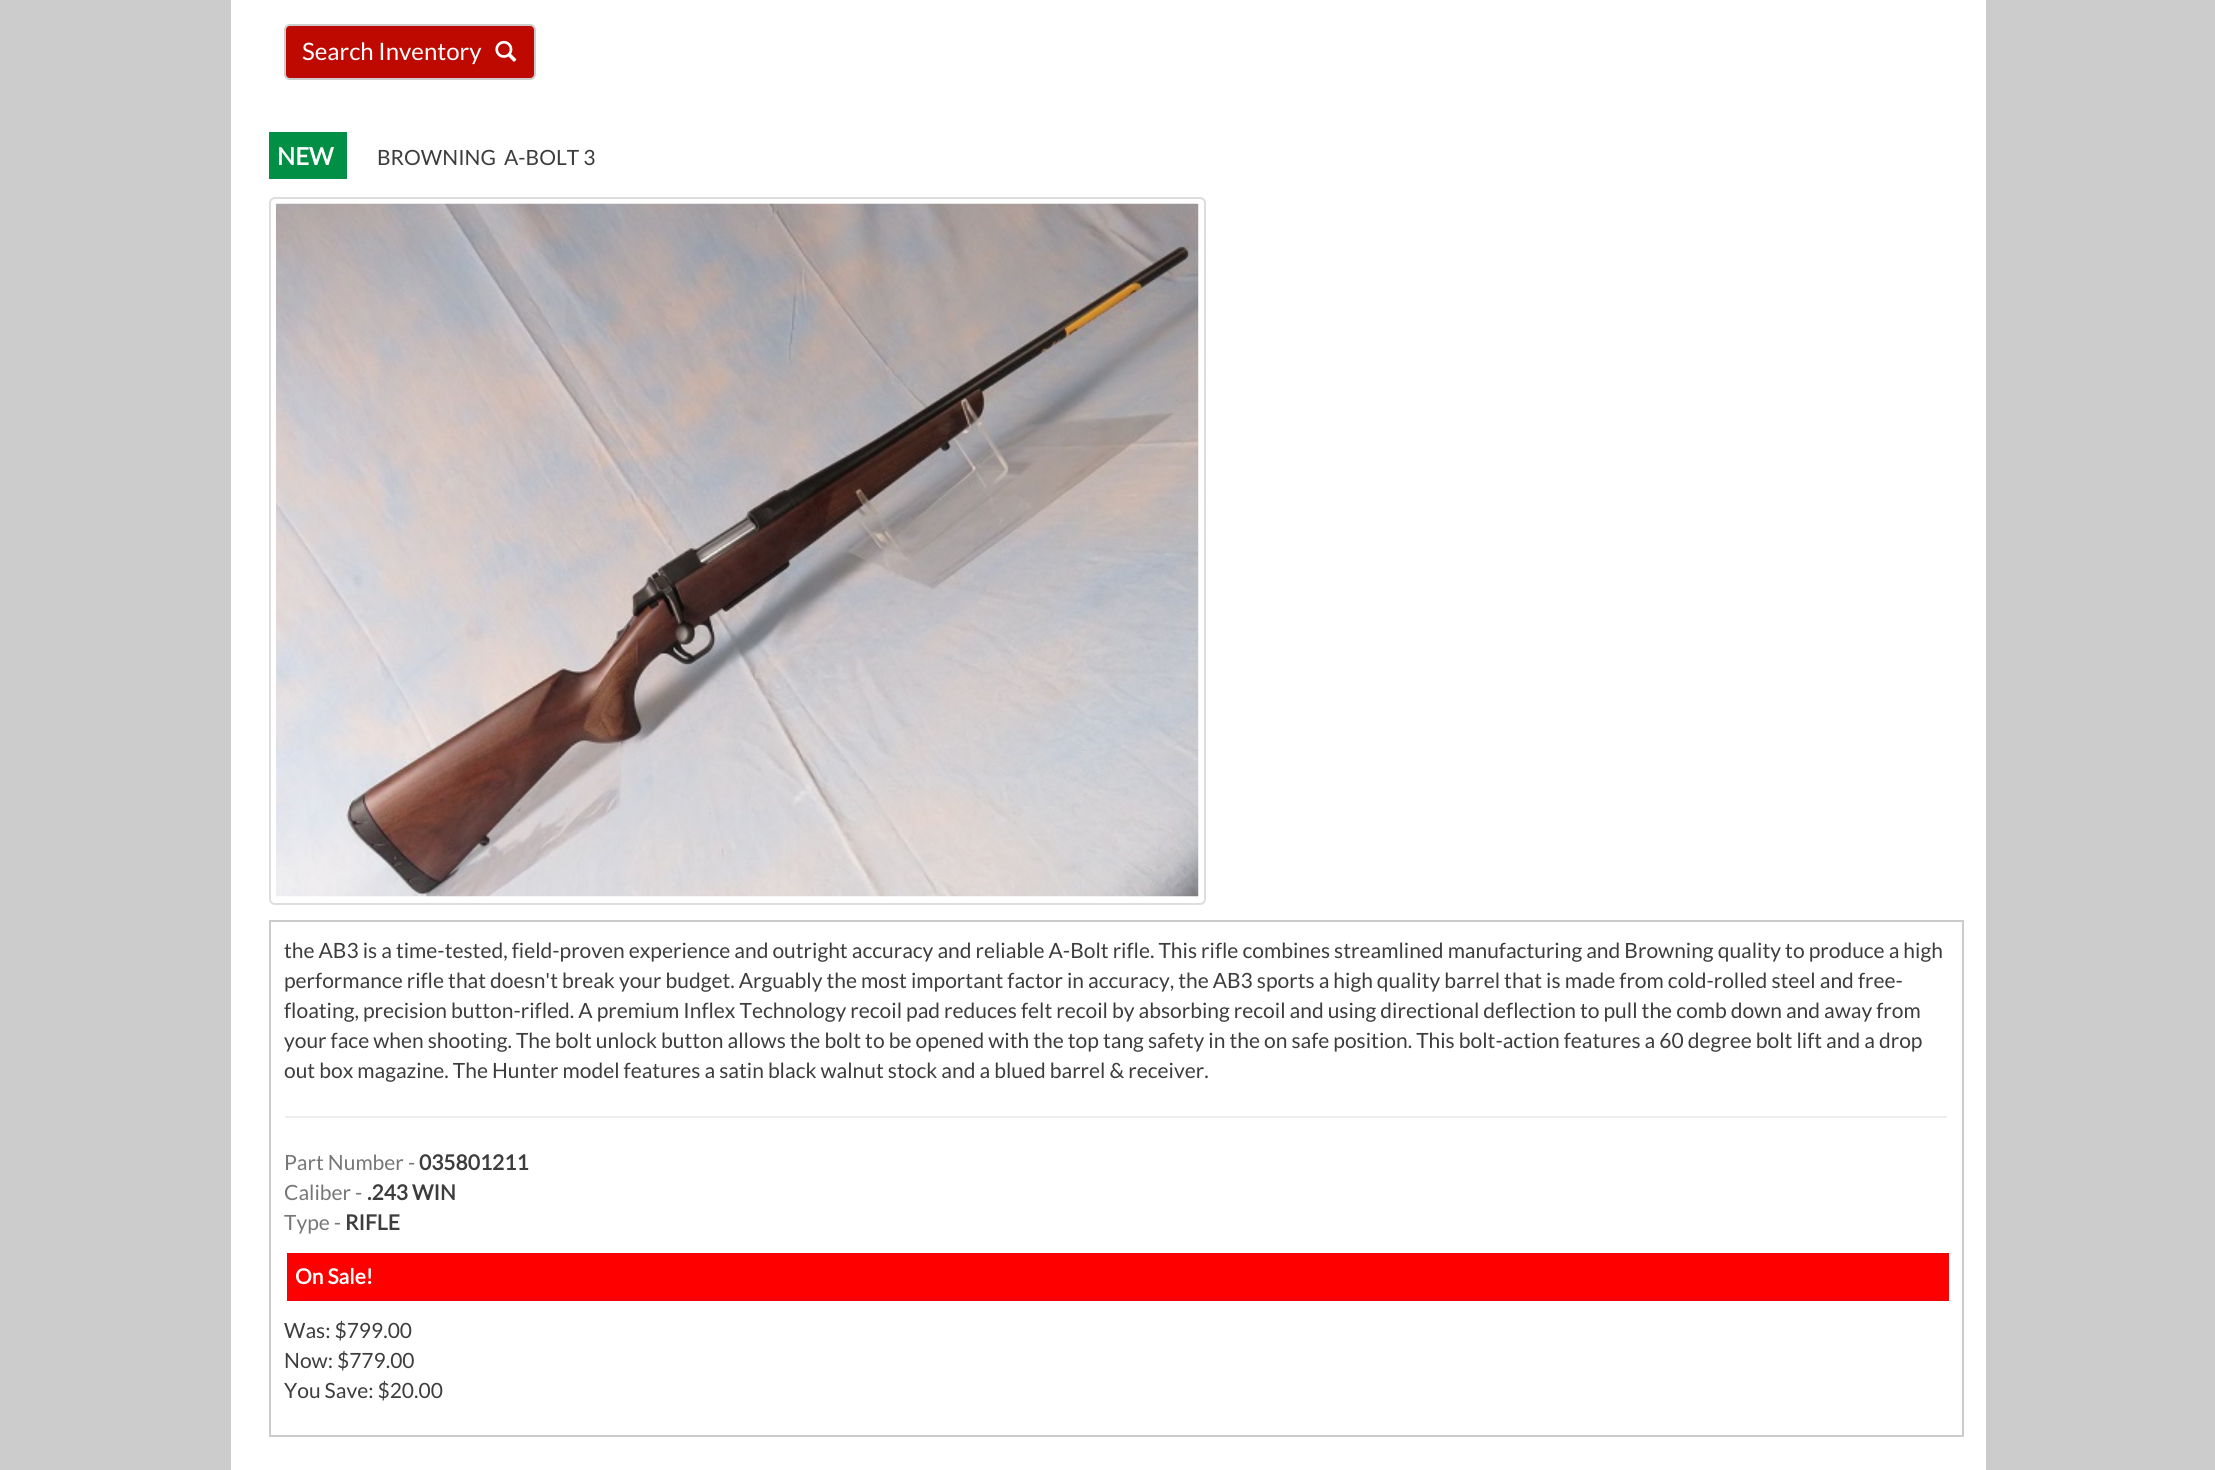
#include <cairo.h>
#include <math.h>
#include <stddef.h>

typedef struct { double x, y; const char *s; } line_t;

static void ink(cairo_t *ctx, unsigned color) {
    cairo_set_source_rgb(ctx, (color >> 16) / 255.0, (color >> 8 & 255) / 255.0, (color & 255) / 255.0);
}

static void round_path(cairo_t *ctx, double x, double y, double w, double h, double r) {
    cairo_new_sub_path(ctx);
    cairo_arc(ctx, x + w - r, y + h - r, r, 0, M_PI / 2);
    cairo_arc(ctx, x + r, y + h - r, r, M_PI / 2, M_PI);
    cairo_arc(ctx, x + r, y + r, r, M_PI, 1.5 * M_PI);
    cairo_arc(ctx, x + w - r, y + r, r, 1.5 * M_PI, 2 * M_PI);
    cairo_close_path(ctx);
}

static void paste(cairo_t *ctx, const char *path, double x, double y, double w, double h) {
    cairo_surface_t *image = cairo_image_surface_create_from_png(path);
    cairo_save(ctx);
    cairo_set_source_surface(ctx, image, x, y);
    cairo_rectangle(ctx, x, y, w, h);
    cairo_fill(ctx);
    cairo_restore(ctx);
    cairo_surface_destroy(image);
}

int main(void) {
    cairo_surface_t *surface = cairo_image_surface_create(CAIRO_FORMAT_RGB24, 2215, 1470);
    cairo_t *ctx = cairo_create(surface);
    cairo_font_options_t *options = cairo_font_options_create();
    cairo_font_options_set_hint_metrics(options, CAIRO_HINT_METRICS_OFF);
    cairo_font_options_set_hint_style(options, CAIRO_HINT_STYLE_NONE);
    cairo_set_font_options(ctx, options);
    cairo_set_miter_limit(ctx, 4);
    ink(ctx, 0xCCCCCC);
    cairo_paint(ctx);
    ink(ctx, 0xFFFFFF);
    cairo_rectangle(ctx, 231, 0, 1755, 1470);
    cairo_fill(ctx);
    ink(ctx, 0xBD0900);
    round_path(ctx, 285, 25, 250, 54, 5);
    cairo_fill_preserve(ctx);
    ink(ctx, 0xCCCCCC);
    cairo_stroke(ctx);
    cairo_select_font_face(ctx, "Lato", CAIRO_FONT_SLANT_NORMAL, CAIRO_FONT_WEIGHT_NORMAL);
    cairo_set_font_size(ctx, 24);
    ink(ctx, 0xFFFFFF);
    cairo_move_to(ctx, 302, 60);
    cairo_show_text(ctx, "Search Inventory");
    paste(ctx, "media/1.png", 495, 40, 22, 22);
    ink(ctx, 0x008F44);
    cairo_rectangle(ctx, 269, 132, 78, 47);
    cairo_fill(ctx);
    cairo_select_font_face(ctx, "Lato", CAIRO_FONT_SLANT_NORMAL, CAIRO_FONT_WEIGHT_BOLD);
    ink(ctx, 0xFFFFFF);
    cairo_move_to(ctx, 277, 165);
    cairo_show_text(ctx, "NEW");
    cairo_select_font_face(ctx, "Lato", CAIRO_FONT_SLANT_NORMAL, CAIRO_FONT_WEIGHT_NORMAL);
    cairo_set_font_size(ctx, 21);
    ink(ctx, 0x3D3D3D);
    cairo_move_to(ctx, 377, 165);
    cairo_show_text(ctx, "BROWNING  A-BOLT 3");
    round_path(ctx, 270, 198, 935, 706, 5);
    ink(ctx, 0xDDDDDD);
    cairo_stroke(ctx);
    paste(ctx, "media/2.png", 276, 203, 923, 694);
    cairo_rectangle(ctx, 270, 921, 1693, 515);
    ink(ctx, 0xCCCCCC);
    cairo_stroke(ctx);
    ink(ctx, 0x3D3D3D);
    {
        static const line_t items[] = {
            {284, 958, "the AB3 is a time-tested, field-proven experience and outright accuracy and reliable A-Bolt rifle. This rifle combines streamlined manufacturing and Browning quality to produce a high"},
            {284, 988, "performance rifle that doesn't break your budget. Arguably the most important factor in accuracy, the AB3 sports a high quality barrel that is made from cold-rolled steel and free-"},
            {284, 1018, "floating, precision button-rifled. A premium Inflex Technology recoil pad reduces felt recoil by absorbing recoil and using directional deflection to pull the comb down and away from"},
            {284, 1048, "your face when shooting. The bolt unlock button allows the bolt to be opened with the top tang safety in the on safe position. This bolt-action features a 60 degree bolt lift and a drop"},
            {284, 1078, "out box magazine. The Hunter model features a satin black walnut stock and a blued barrel & receiver."},
        };
        for (size_t i = 0; i < sizeof items / sizeof *items; i++) {
            cairo_move_to(ctx, items[i].x, items[i].y);
            cairo_show_text(ctx, items[i].s);
        }
    }
    ink(ctx, 0xEEEEEE);
    cairo_rectangle(ctx, 285, 1116, 1662, 2);
    cairo_fill(ctx);
    ink(ctx, 0x777777);
    cairo_move_to(ctx, 284, 1170);
    cairo_show_text(ctx, "Part Number -");
    cairo_select_font_face(ctx, "Lato", CAIRO_FONT_SLANT_NORMAL, CAIRO_FONT_WEIGHT_BOLD);
    ink(ctx, 0x3D3D3D);
    cairo_move_to(ctx, 419, 1170);
    cairo_show_text(ctx, "035801211");
    cairo_select_font_face(ctx, "Lato", CAIRO_FONT_SLANT_NORMAL, CAIRO_FONT_WEIGHT_NORMAL);
    ink(ctx, 0x777777);
    cairo_move_to(ctx, 284, 1200);
    cairo_show_text(ctx, "Caliber -");
    cairo_select_font_face(ctx, "Lato", CAIRO_FONT_SLANT_NORMAL, CAIRO_FONT_WEIGHT_BOLD);
    ink(ctx, 0x3D3D3D);
    cairo_move_to(ctx, 367, 1200);
    cairo_show_text(ctx, ".243 WIN");
    cairo_select_font_face(ctx, "Lato", CAIRO_FONT_SLANT_NORMAL, CAIRO_FONT_WEIGHT_NORMAL);
    ink(ctx, 0x777777);
    cairo_move_to(ctx, 284, 1230);
    cairo_show_text(ctx, "Type -");
    cairo_select_font_face(ctx, "Lato", CAIRO_FONT_SLANT_NORMAL, CAIRO_FONT_WEIGHT_BOLD);
    ink(ctx, 0x3D3D3D);
    cairo_move_to(ctx, 345, 1230);
    cairo_show_text(ctx, "RIFLE");
    ink(ctx, 0xFF0000);
    cairo_rectangle(ctx, 288, 1254, 1660, 46);
    cairo_fill_preserve(ctx);
    ink(ctx, 0xF30408);
    cairo_stroke(ctx);
    ink(ctx, 0xFFFFFF);
    cairo_move_to(ctx, 295, 1284);
    cairo_show_text(ctx, "On Sale!");
    cairo_select_font_face(ctx, "Lato", CAIRO_FONT_SLANT_NORMAL, CAIRO_FONT_WEIGHT_NORMAL);
    ink(ctx, 0x3D3D3D);
    {
        static const line_t items[] = {
            {284, 1338, "Was: $799.00"},
            {284, 1368, "Now: $779.00"},
            {284, 1398, "You Save: $20.00"},
        };
        for (size_t i = 0; i < sizeof items / sizeof *items; i++) {
            cairo_move_to(ctx, items[i].x, items[i].y);
            cairo_show_text(ctx, items[i].s);
        }
    }
    cairo_surface_write_to_png(surface, "image.png");
    cairo_font_options_destroy(options);
    cairo_destroy(ctx);
    cairo_surface_destroy(surface);
    return 0;
}
